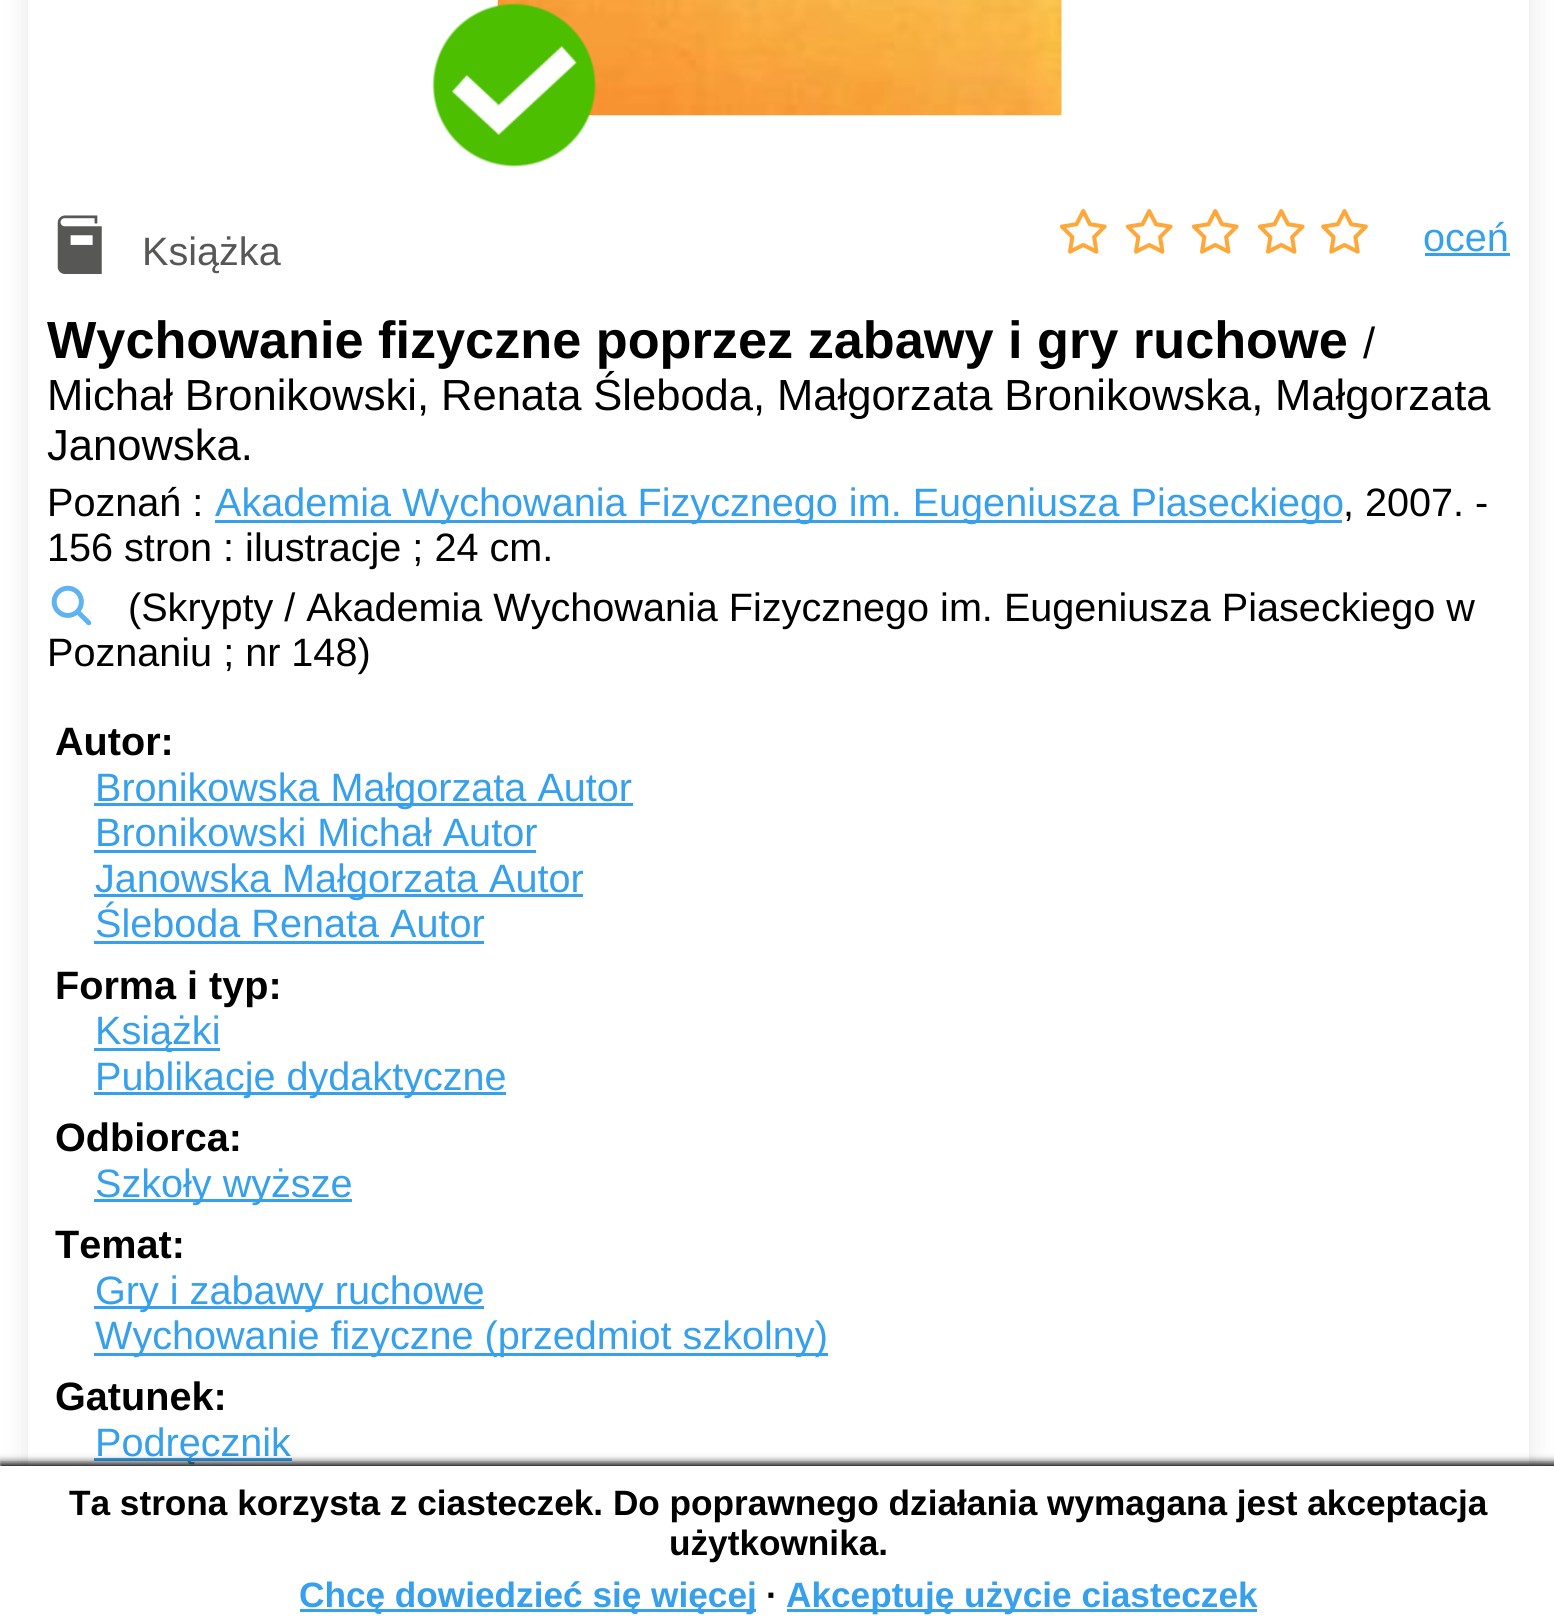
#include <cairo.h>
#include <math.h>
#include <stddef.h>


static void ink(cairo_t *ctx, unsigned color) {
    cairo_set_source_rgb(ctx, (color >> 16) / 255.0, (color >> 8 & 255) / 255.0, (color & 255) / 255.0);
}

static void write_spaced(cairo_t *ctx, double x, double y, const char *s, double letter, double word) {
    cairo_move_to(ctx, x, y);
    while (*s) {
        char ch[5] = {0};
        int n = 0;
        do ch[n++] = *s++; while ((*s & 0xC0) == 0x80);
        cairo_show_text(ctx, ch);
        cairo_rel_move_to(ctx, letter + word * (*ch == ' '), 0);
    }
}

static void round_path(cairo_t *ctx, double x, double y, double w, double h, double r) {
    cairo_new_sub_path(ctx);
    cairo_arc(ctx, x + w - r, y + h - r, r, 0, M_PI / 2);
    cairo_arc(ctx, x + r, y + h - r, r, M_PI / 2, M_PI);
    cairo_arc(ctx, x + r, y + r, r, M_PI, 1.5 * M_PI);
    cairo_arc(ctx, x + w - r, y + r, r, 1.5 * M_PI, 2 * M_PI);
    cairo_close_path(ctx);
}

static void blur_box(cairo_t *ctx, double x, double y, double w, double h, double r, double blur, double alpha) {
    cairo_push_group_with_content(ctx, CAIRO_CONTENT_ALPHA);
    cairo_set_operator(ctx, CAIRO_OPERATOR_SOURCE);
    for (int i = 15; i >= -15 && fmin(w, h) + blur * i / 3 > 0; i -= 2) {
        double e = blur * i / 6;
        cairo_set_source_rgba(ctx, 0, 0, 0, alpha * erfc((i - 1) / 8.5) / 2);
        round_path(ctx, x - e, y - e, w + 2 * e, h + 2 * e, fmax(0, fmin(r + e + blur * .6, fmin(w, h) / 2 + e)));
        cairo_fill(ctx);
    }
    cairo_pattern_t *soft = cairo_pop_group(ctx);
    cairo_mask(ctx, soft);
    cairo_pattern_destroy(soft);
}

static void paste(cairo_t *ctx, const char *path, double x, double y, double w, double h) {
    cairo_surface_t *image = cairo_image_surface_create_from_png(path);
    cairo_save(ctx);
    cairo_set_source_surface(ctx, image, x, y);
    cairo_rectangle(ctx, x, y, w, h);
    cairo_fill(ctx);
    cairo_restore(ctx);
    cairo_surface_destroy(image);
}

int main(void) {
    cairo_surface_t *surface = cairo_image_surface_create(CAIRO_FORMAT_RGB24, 1554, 1624);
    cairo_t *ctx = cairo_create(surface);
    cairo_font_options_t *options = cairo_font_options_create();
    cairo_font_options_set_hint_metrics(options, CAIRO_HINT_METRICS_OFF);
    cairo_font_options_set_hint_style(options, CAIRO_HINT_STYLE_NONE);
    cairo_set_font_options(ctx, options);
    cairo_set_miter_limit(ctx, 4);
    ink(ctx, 0xFFFFFF);
    cairo_paint(ctx);
    cairo_save(ctx);
    cairo_set_fill_rule(ctx, CAIRO_FILL_RULE_EVEN_ODD);
    cairo_new_path(ctx);
    cairo_move_to(ctx, 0, 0);
    cairo_line_to(ctx, 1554, 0);
    cairo_line_to(ctx, 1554, 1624);
    cairo_line_to(ctx, 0, 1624);
    cairo_close_path(ctx);
    cairo_move_to(ctx, 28, -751);
    cairo_line_to(ctx, 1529, -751);
    cairo_line_to(ctx, 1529, 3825);
    cairo_line_to(ctx, 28, 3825);
    cairo_close_path(ctx);
    cairo_clip(ctx);
    ink(ctx, 0x000000);
    blur_box(ctx, 28, -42, 1501, 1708, 0, 14, 0.1);
    cairo_restore(ctx);
    paste(ctx, "media/1.png", 497, 0, 565, 116);
    paste(ctx, "media/2.png", 432, 3, 164, 164);
    paste(ctx, "media/3.png", 57, 215, 45, 59);
    cairo_select_font_face(ctx, "Liberation Sans", CAIRO_FONT_SLANT_NORMAL, CAIRO_FONT_WEIGHT_NORMAL);
    cairo_set_font_size(ctx, 39.6);
    ink(ctx, 0x575756);
    cairo_move_to(ctx, 142, 265);
    cairo_show_text(ctx, "Książka");
    paste(ctx, "media/4.png", 1059, 209, 48, 45);
    paste(ctx, "media/4.png", 1125, 209, 48, 45);
    paste(ctx, "media/4.png", 1191, 209, 48, 45);
    paste(ctx, "media/4.png", 1257, 209, 48, 45);
    paste(ctx, "media/5.png", 1321, 209, 47, 45);
    ink(ctx, 0x36A0EC);
    cairo_move_to(ctx, 1423, 251);
    cairo_show_text(ctx, "oceń");
    cairo_rectangle(ctx, 1425, 253, 85, 3);
    cairo_fill(ctx);
    cairo_select_font_face(ctx, "Liberation Sans", CAIRO_FONT_SLANT_NORMAL, CAIRO_FONT_WEIGHT_BOLD);
    cairo_set_font_size(ctx, 52.25);
    ink(ctx, 0x000000);
    cairo_move_to(ctx, 47, 358);
    cairo_show_text(ctx, "Wychowanie fizyczne poprzez zabawy i gry ruchowe");
    cairo_select_font_face(ctx, "Liberation Sans", CAIRO_FONT_SLANT_NORMAL, CAIRO_FONT_WEIGHT_NORMAL);
    cairo_set_font_size(ctx, 43.55);
    cairo_move_to(ctx, 1363, 358);
    cairo_show_text(ctx, "/");
    write_spaced(ctx, 47, 410, "Michał Bronikowski, Renata Śleboda, Małgorzata Bronikowska, Małgorzata", 0, -0.25);
    cairo_move_to(ctx, 47, 460);
    cairo_show_text(ctx, "Janowska.");
    cairo_set_font_size(ctx, 39.6);
    cairo_move_to(ctx, 47, 516);
    cairo_show_text(ctx, "Poznań :");
    ink(ctx, 0x36A0EC);
    cairo_rectangle(ctx, 215, 520, 1127, 3);
    cairo_fill(ctx);
    cairo_move_to(ctx, 215, 516);
    cairo_show_text(ctx, "Akademia Wychowania Fizycznego im. Eugeniusza Piaseckiego");
    ink(ctx, 0x000000);
    cairo_move_to(ctx, 1343, 516);
    cairo_show_text(ctx, ", 2007. -");
    cairo_move_to(ctx, 47, 561);
    cairo_show_text(ctx, "156 stron : ilustracje ; 24 cm.");
    paste(ctx, "media/6.png", 51, 585, 41, 41);
    cairo_move_to(ctx, 128, 621);
    cairo_show_text(ctx, "(Skrypty / Akademia Wychowania Fizycznego im. Eugeniusza Piaseckiego w");
    cairo_move_to(ctx, 47, 666);
    cairo_show_text(ctx, "Poznaniu ; nr 148)");
    cairo_select_font_face(ctx, "Liberation Sans", CAIRO_FONT_SLANT_NORMAL, CAIRO_FONT_WEIGHT_BOLD);
    cairo_move_to(ctx, 55, 755);
    cairo_show_text(ctx, "Autor:");
    ink(ctx, 0x36A0EC);
    cairo_rectangle(ctx, 94, 803, 539, 3);
    cairo_fill(ctx);
    cairo_select_font_face(ctx, "Liberation Sans", CAIRO_FONT_SLANT_NORMAL, CAIRO_FONT_WEIGHT_NORMAL);
    cairo_move_to(ctx, 95, 801);
    cairo_show_text(ctx, "Bronikowska Małgorzata Autor");
    cairo_move_to(ctx, 95, 846);
    cairo_show_text(ctx, "Bronikowski Michał Autor");
    cairo_rectangle(ctx, 94, 850, 442, 3);
    cairo_fill(ctx);
    cairo_rectangle(ctx, 94, 894, 489, 3);
    cairo_fill(ctx);
    cairo_move_to(ctx, 95, 892);
    cairo_show_text(ctx, "Janowska Małgorzata Autor");
    cairo_move_to(ctx, 95, 937);
    cairo_show_text(ctx, "Śleboda Renata Autor");
    cairo_rectangle(ctx, 94, 941, 390, 3);
    cairo_fill(ctx);
    cairo_select_font_face(ctx, "Liberation Sans", CAIRO_FONT_SLANT_NORMAL, CAIRO_FONT_WEIGHT_BOLD);
    ink(ctx, 0x000000);
    cairo_move_to(ctx, 55, 999);
    cairo_show_text(ctx, "Forma i typ:");
    ink(ctx, 0x36A0EC);
    cairo_rectangle(ctx, 94, 1048, 126, 3);
    cairo_fill(ctx);
    cairo_select_font_face(ctx, "Liberation Sans", CAIRO_FONT_SLANT_NORMAL, CAIRO_FONT_WEIGHT_NORMAL);
    cairo_move_to(ctx, 95, 1044);
    cairo_show_text(ctx, "Książki");
    cairo_rectangle(ctx, 94, 1092, 412, 3);
    cairo_fill(ctx);
    cairo_move_to(ctx, 95, 1090);
    cairo_show_text(ctx, "Publikacje dydaktyczne");
    cairo_select_font_face(ctx, "Liberation Sans", CAIRO_FONT_SLANT_NORMAL, CAIRO_FONT_WEIGHT_BOLD);
    ink(ctx, 0x000000);
    cairo_move_to(ctx, 55, 1151);
    cairo_show_text(ctx, "Odbiorca:");
    ink(ctx, 0x36A0EC);
    cairo_rectangle(ctx, 94, 1199, 258, 3);
    cairo_fill(ctx);
    cairo_select_font_face(ctx, "Liberation Sans", CAIRO_FONT_SLANT_NORMAL, CAIRO_FONT_WEIGHT_NORMAL);
    cairo_move_to(ctx, 95, 1197);
    cairo_show_text(ctx, "Szkoły wyższe");
    cairo_select_font_face(ctx, "Liberation Sans", CAIRO_FONT_SLANT_NORMAL, CAIRO_FONT_WEIGHT_BOLD);
    ink(ctx, 0x000000);
    cairo_move_to(ctx, 55, 1258);
    cairo_show_text(ctx, "Temat:");
    ink(ctx, 0x36A0EC);
    cairo_rectangle(ctx, 94, 1306, 390, 3);
    cairo_fill(ctx);
    cairo_select_font_face(ctx, "Liberation Sans", CAIRO_FONT_SLANT_NORMAL, CAIRO_FONT_WEIGHT_NORMAL);
    cairo_move_to(ctx, 95, 1304);
    cairo_show_text(ctx, "Gry i zabawy ruchowe");
    cairo_rectangle(ctx, 94, 1353, 734, 3);
    cairo_fill(ctx);
    cairo_move_to(ctx, 95, 1349);
    cairo_show_text(ctx, "Wychowanie fizyczne (przedmiot szkolny)");
    cairo_select_font_face(ctx, "Liberation Sans", CAIRO_FONT_SLANT_NORMAL, CAIRO_FONT_WEIGHT_BOLD);
    ink(ctx, 0x000000);
    cairo_move_to(ctx, 55, 1410);
    cairo_show_text(ctx, "Gatunek:");
    ink(ctx, 0x36A0EC);
    cairo_rectangle(ctx, 94, 1458, 198, 3);
    cairo_fill(ctx);
    cairo_select_font_face(ctx, "Liberation Sans", CAIRO_FONT_SLANT_NORMAL, CAIRO_FONT_WEIGHT_NORMAL);
    cairo_move_to(ctx, 95, 1456);
    cairo_show_text(ctx, "Podręcznik");
    ink(ctx, 0x000000);
    blur_box(ctx, 0, 1463, 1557, 160, 0, 4, 1);
    ink(ctx, 0xFFFFFF);
    cairo_rectangle(ctx, 0, 1466, 1554, 158);
    cairo_fill(ctx);
    cairo_select_font_face(ctx, "Liberation Sans", CAIRO_FONT_SLANT_NORMAL, CAIRO_FONT_WEIGHT_BOLD);
    cairo_set_font_size(ctx, 35.2);
    ink(ctx, 0x000000);
    cairo_move_to(ctx, 69, 1515);
    cairo_show_text(ctx, "Ta strona korzysta z ciasteczek. Do poprawnego działania wymagana jest akceptacja");
    cairo_move_to(ctx, 669, 1555);
    cairo_show_text(ctx, "użytkownika.");
    ink(ctx, 0x36A0EC);
    cairo_rectangle(ctx, 300, 1609, 456, 3);
    cairo_fill(ctx);
    cairo_move_to(ctx, 299, 1607);
    cairo_show_text(ctx, "Chcę dowiedzieć się więcej");
    ink(ctx, 0x000000);
    cairo_move_to(ctx, 766, 1607);
    cairo_show_text(ctx, "∙");
    ink(ctx, 0x36A0EC);
    cairo_rectangle(ctx, 787, 1609, 470, 3);
    cairo_fill(ctx);
    cairo_move_to(ctx, 786, 1607);
    cairo_show_text(ctx, "Akceptuję użycie ciasteczek");
    cairo_surface_write_to_png(surface, "image.png");
    cairo_font_options_destroy(options);
    cairo_destroy(ctx);
    cairo_surface_destroy(surface);
    return 0;
}
